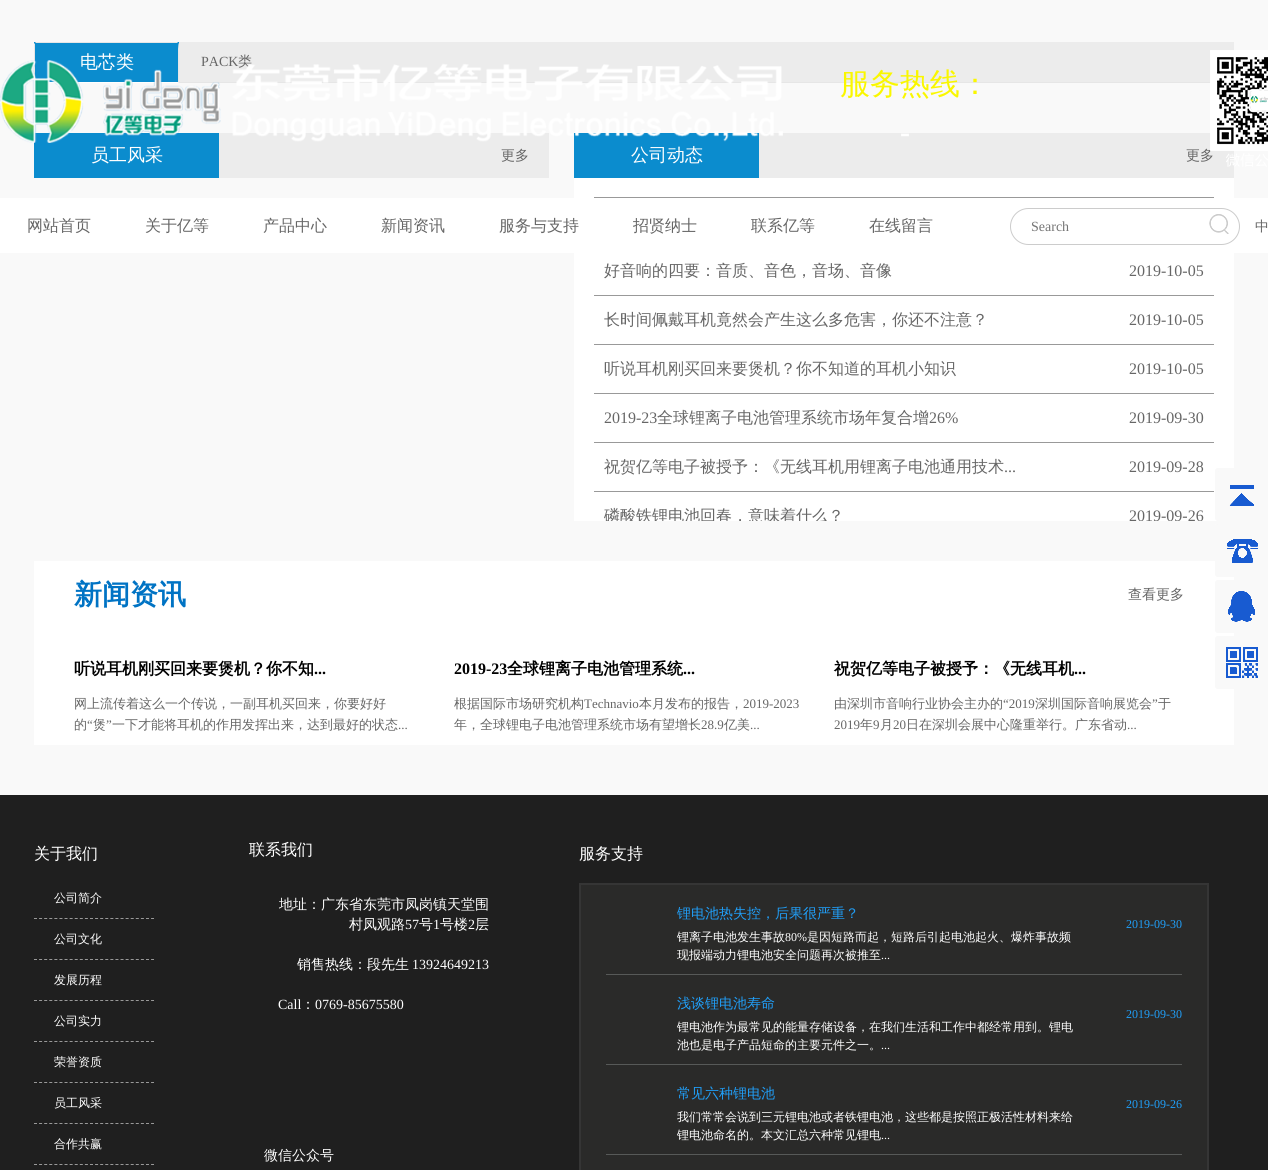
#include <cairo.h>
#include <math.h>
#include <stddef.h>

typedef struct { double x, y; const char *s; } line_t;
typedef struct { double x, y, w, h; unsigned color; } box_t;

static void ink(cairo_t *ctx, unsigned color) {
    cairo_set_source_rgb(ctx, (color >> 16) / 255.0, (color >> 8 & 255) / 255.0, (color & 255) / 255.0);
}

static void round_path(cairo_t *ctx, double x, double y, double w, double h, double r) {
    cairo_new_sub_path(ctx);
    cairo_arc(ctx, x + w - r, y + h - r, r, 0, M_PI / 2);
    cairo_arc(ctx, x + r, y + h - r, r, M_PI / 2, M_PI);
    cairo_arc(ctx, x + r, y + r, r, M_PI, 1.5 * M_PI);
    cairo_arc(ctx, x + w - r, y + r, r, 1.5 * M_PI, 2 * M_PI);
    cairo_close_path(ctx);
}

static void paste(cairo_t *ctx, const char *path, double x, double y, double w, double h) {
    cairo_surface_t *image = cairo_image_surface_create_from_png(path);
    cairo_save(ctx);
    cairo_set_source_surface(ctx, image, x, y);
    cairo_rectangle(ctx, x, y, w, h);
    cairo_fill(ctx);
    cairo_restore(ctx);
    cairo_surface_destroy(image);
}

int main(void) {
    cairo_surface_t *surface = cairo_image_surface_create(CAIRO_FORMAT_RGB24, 1268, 1170);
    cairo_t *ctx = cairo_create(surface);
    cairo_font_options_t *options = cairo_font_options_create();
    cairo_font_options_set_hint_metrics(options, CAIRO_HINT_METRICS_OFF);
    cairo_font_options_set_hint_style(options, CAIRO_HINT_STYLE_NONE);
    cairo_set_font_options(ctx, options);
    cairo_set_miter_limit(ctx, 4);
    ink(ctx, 0xF9F9F9);
    cairo_paint(ctx);
    {
        static const box_t items[] = {
            {179, 42, 1055, 40, 0xECECEC},
            {34, 82, 1177, 1, 0xE6E6E6},
            {34, 42, 145, 40, 0x0B8CCE},
        };
        for (size_t i = 0; i < sizeof items / sizeof *items; i++) {
            ink(ctx, items[i].color);
            cairo_rectangle(ctx, items[i].x, items[i].y, items[i].w, items[i].h);
            cairo_fill(ctx);
        }
    }
    ink(ctx, 0xE6E6E6);
    cairo_new_path(ctx);
    cairo_move_to(ctx, 36, 42);
    cairo_line_to(ctx, 35, 43);
    cairo_line_to(ctx, 178, 43);
    cairo_line_to(ctx, 177, 42);
    cairo_close_path(ctx);
    cairo_fill(ctx);
    cairo_new_path(ctx);
    cairo_move_to(ctx, 179, 83);
    cairo_curve_to(ctx, 179, 78, 180, 44, 178, 43);
    cairo_line_to(ctx, 178, 82);
    cairo_close_path(ctx);
    cairo_fill(ctx);
    ink(ctx, 0xFFFFFF);
    cairo_new_path(ctx);
    cairo_move_to(ctx, 179, 83);
    cairo_line_to(ctx, 178, 82);
    cairo_line_to(ctx, 35, 82);
    cairo_line_to(ctx, 34, 83);
    cairo_close_path(ctx);
    cairo_fill(ctx);
    ink(ctx, 0xE6E6E6);
    cairo_new_path(ctx);
    cairo_move_to(ctx, 34, 83);
    cairo_line_to(ctx, 35, 82);
    cairo_line_to(ctx, 35, 43);
    cairo_line_to(ctx, 34, 44);
    cairo_close_path(ctx);
    cairo_fill(ctx);
    cairo_select_font_face(ctx, "WenQuanYi Zen Hei Medium", CAIRO_FONT_SLANT_NORMAL, CAIRO_FONT_WEIGHT_NORMAL);
    cairo_set_font_size(ctx, 18);
    ink(ctx, 0xFFFFFF);
    cairo_move_to(ctx, 80, 68);
    cairo_show_text(ctx, "电芯类");
    cairo_select_font_face(ctx, "Liberation Serif", CAIRO_FONT_SLANT_NORMAL, CAIRO_FONT_WEIGHT_NORMAL);
    cairo_set_font_size(ctx, 14);
    ink(ctx, 0x666666);
    cairo_move_to(ctx, 201, 66);
    cairo_show_text(ctx, "PACK");
    cairo_select_font_face(ctx, "WenQuanYi Zen Hei Medium", CAIRO_FONT_SLANT_NORMAL, CAIRO_FONT_WEIGHT_NORMAL);
    cairo_move_to(ctx, 238, 66);
    cairo_show_text(ctx, "类");
    {
        static const box_t items[] = {
            {219, 133, 330, 45, 0xECECEC},
            {34, 133, 185, 45, 0x0B8CCE},
            {759, 133, 475, 45, 0xECECEC},
            {574, 133, 185, 45, 0x0B8CCE},
        };
        for (size_t i = 0; i < sizeof items / sizeof *items; i++) {
            ink(ctx, items[i].color);
            cairo_rectangle(ctx, items[i].x, items[i].y, items[i].w, items[i].h);
            cairo_fill(ctx);
        }
    }
    paste(ctx, "media/1.png", 0, 60, 783, 83);
    cairo_set_font_size(ctx, 30);
    ink(ctx, 0xFAF700);
    cairo_move_to(ctx, 840, 94);
    cairo_show_text(ctx, "服务热线：");
    cairo_select_font_face(ctx, "Liberation Serif", CAIRO_FONT_SLANT_NORMAL, CAIRO_FONT_WEIGHT_BOLD);
    ink(ctx, 0xFFFFFF);
    cairo_move_to(ctx, 900, 142);
    cairo_show_text(ctx, "-");
    cairo_select_font_face(ctx, "WenQuanYi Zen Hei Medium", CAIRO_FONT_SLANT_NORMAL, CAIRO_FONT_WEIGHT_NORMAL);
    cairo_set_font_size(ctx, 14);
    ink(ctx, 0x666666);
    cairo_move_to(ctx, 1186, 160);
    cairo_show_text(ctx, "更多");
    paste(ctx, "media/2.png", 1210, 50, 58, 117);
    cairo_set_font_size(ctx, 18);
    ink(ctx, 0xFFFFFF);
    cairo_move_to(ctx, 91, 161);
    cairo_show_text(ctx, "员工风采");
    cairo_set_font_size(ctx, 14);
    ink(ctx, 0x666666);
    cairo_move_to(ctx, 501, 160);
    cairo_show_text(ctx, "更多");
    cairo_set_font_size(ctx, 18);
    ink(ctx, 0xFFFFFF);
    cairo_move_to(ctx, 631, 161);
    cairo_show_text(ctx, "公司动态");
    {
        static const box_t items[] = {
            {574, 178, 660, 343, 0xFFFFFF},
            {594, 197, 620, 1, 0x999999},
            {594, 295, 620, 1, 0x999999},
        };
        for (size_t i = 0; i < sizeof items / sizeof *items; i++) {
            ink(ctx, items[i].color);
            cairo_rectangle(ctx, items[i].x, items[i].y, items[i].w, items[i].h);
            cairo_fill(ctx);
        }
    }
    cairo_set_font_size(ctx, 16);
    ink(ctx, 0x666666);
    cairo_move_to(ctx, 604, 276);
    cairo_show_text(ctx, "好音响的四要：音质、音色，音场、音像");
    cairo_select_font_face(ctx, "Liberation Serif", CAIRO_FONT_SLANT_NORMAL, CAIRO_FONT_WEIGHT_NORMAL);
    cairo_move_to(ctx, 1129, 276);
    cairo_show_text(ctx, "2019-10-05");
    ink(ctx, 0x999999);
    cairo_rectangle(ctx, 594, 344, 620, 1);
    cairo_fill(ctx);
    cairo_select_font_face(ctx, "WenQuanYi Zen Hei Medium", CAIRO_FONT_SLANT_NORMAL, CAIRO_FONT_WEIGHT_NORMAL);
    ink(ctx, 0x666666);
    cairo_move_to(ctx, 604, 325);
    cairo_show_text(ctx, "长时间佩戴耳机竟然会产生这么多危害，你还不注意？");
    cairo_select_font_face(ctx, "Liberation Serif", CAIRO_FONT_SLANT_NORMAL, CAIRO_FONT_WEIGHT_NORMAL);
    cairo_move_to(ctx, 1129, 325);
    cairo_show_text(ctx, "2019-10-05");
    ink(ctx, 0x999999);
    cairo_rectangle(ctx, 594, 393, 620, 1);
    cairo_fill(ctx);
    cairo_select_font_face(ctx, "WenQuanYi Zen Hei Medium", CAIRO_FONT_SLANT_NORMAL, CAIRO_FONT_WEIGHT_NORMAL);
    ink(ctx, 0x666666);
    cairo_move_to(ctx, 604, 374);
    cairo_show_text(ctx, "听说耳机刚买回来要煲机？你不知道的耳机小知识");
    cairo_select_font_face(ctx, "Liberation Serif", CAIRO_FONT_SLANT_NORMAL, CAIRO_FONT_WEIGHT_NORMAL);
    cairo_move_to(ctx, 1129, 374);
    cairo_show_text(ctx, "2019-10-05");
    ink(ctx, 0x999999);
    cairo_rectangle(ctx, 594, 442, 620, 1);
    cairo_fill(ctx);
    ink(ctx, 0x666666);
    cairo_move_to(ctx, 604, 423);
    cairo_show_text(ctx, "2019-23");
    cairo_select_font_face(ctx, "WenQuanYi Zen Hei Medium", CAIRO_FONT_SLANT_NORMAL, CAIRO_FONT_WEIGHT_NORMAL);
    cairo_move_to(ctx, 657, 423);
    cairo_show_text(ctx, "全球锂离子电池管理系统市场年复合增");
    cairo_select_font_face(ctx, "Liberation Serif", CAIRO_FONT_SLANT_NORMAL, CAIRO_FONT_WEIGHT_NORMAL);
    cairo_move_to(ctx, 929, 423);
    cairo_show_text(ctx, "26%");
    cairo_move_to(ctx, 1129, 423);
    cairo_show_text(ctx, "2019-09-30");
    ink(ctx, 0x999999);
    cairo_rectangle(ctx, 594, 491, 620, 1);
    cairo_fill(ctx);
    cairo_select_font_face(ctx, "WenQuanYi Zen Hei Medium", CAIRO_FONT_SLANT_NORMAL, CAIRO_FONT_WEIGHT_NORMAL);
    ink(ctx, 0x666666);
    cairo_move_to(ctx, 604, 472);
    cairo_show_text(ctx, "祝贺亿等电子被授予：《无线耳机用锂离子电池通用技术");
    cairo_select_font_face(ctx, "Liberation Serif", CAIRO_FONT_SLANT_NORMAL, CAIRO_FONT_WEIGHT_NORMAL);
    cairo_move_to(ctx, 1004, 472);
    cairo_show_text(ctx, "...");
    cairo_move_to(ctx, 1129, 472);
    cairo_show_text(ctx, "2019-09-28");
    cairo_save(ctx);
    cairo_rectangle(ctx, 574, 178, 660, 343);
    cairo_clip(ctx);
    cairo_select_font_face(ctx, "WenQuanYi Zen Hei Medium", CAIRO_FONT_SLANT_NORMAL, CAIRO_FONT_WEIGHT_NORMAL);
    cairo_move_to(ctx, 604, 521);
    cairo_show_text(ctx, "磷酸铁锂电池回春，意味着什么？");
    cairo_select_font_face(ctx, "Liberation Serif", CAIRO_FONT_SLANT_NORMAL, CAIRO_FONT_WEIGHT_NORMAL);
    cairo_move_to(ctx, 1129, 521);
    cairo_show_text(ctx, "2019-09-26");
    cairo_restore(ctx);
    ink(ctx, 0xFFFFFF);
    cairo_rectangle(ctx, 0, 198, 1268, 55);
    cairo_fill(ctx);
    cairo_select_font_face(ctx, "WenQuanYi Zen Hei Medium", CAIRO_FONT_SLANT_NORMAL, CAIRO_FONT_WEIGHT_NORMAL);
    ink(ctx, 0x666666);
    {
        static const line_t items[] = {
            {27, 231, "网站首页"},
            {145, 231, "关于亿等"},
            {263, 231, "产品中心"},
            {381, 231, "新闻资讯"},
            {499, 231, "服务与支持"},
            {633, 231, "招贤纳士"},
            {751, 231, "联系亿等"},
            {869, 231, "在线留言"},
        };
        for (size_t i = 0; i < sizeof items / sizeof *items; i++) {
            cairo_move_to(ctx, items[i].x, items[i].y);
            cairo_show_text(ctx, items[i].s);
        }
    }
    round_path(ctx, 1010.5, 208.5, 229, 36, 18);
    ink(ctx, 0xCCCCCC);
    cairo_set_line_width(ctx, 1);
    cairo_stroke(ctx);
    cairo_select_font_face(ctx, "Liberation Serif", CAIRO_FONT_SLANT_NORMAL, CAIRO_FONT_WEIGHT_NORMAL);
    cairo_set_font_size(ctx, 14);
    ink(ctx, 0x757575);
    cairo_move_to(ctx, 1031, 231);
    cairo_show_text(ctx, "Search");
    paste(ctx, "media/3.png", 1209, 214, 20, 20);
    cairo_select_font_face(ctx, "WenQuanYi Zen Hei Medium", CAIRO_FONT_SLANT_NORMAL, CAIRO_FONT_WEIGHT_NORMAL);
    ink(ctx, 0x666666);
    cairo_move_to(ctx, 1255, 231);
    cairo_show_text(ctx, "中");
    ink(ctx, 0xFFFFFF);
    cairo_rectangle(ctx, 34, 561, 1200, 184);
    cairo_fill(ctx);
    cairo_select_font_face(ctx, "WenQuanYi Zen Hei", CAIRO_FONT_SLANT_NORMAL, CAIRO_FONT_WEIGHT_BOLD);
    cairo_set_font_size(ctx, 28);
    ink(ctx, 0x0073C4);
    cairo_move_to(ctx, 74, 604);
    cairo_show_text(ctx, "新闻资讯");
    cairo_select_font_face(ctx, "WenQuanYi Zen Hei Medium", CAIRO_FONT_SLANT_NORMAL, CAIRO_FONT_WEIGHT_NORMAL);
    cairo_set_font_size(ctx, 14);
    ink(ctx, 0x666666);
    cairo_move_to(ctx, 1128, 599);
    cairo_show_text(ctx, "查看更多");
    cairo_select_font_face(ctx, "WenQuanYi Zen Hei", CAIRO_FONT_SLANT_NORMAL, CAIRO_FONT_WEIGHT_BOLD);
    cairo_set_font_size(ctx, 16);
    ink(ctx, 0x000000);
    cairo_move_to(ctx, 74, 674);
    cairo_show_text(ctx, "听说耳机刚买回来要煲机？你不知");
    cairo_select_font_face(ctx, "Liberation Serif", CAIRO_FONT_SLANT_NORMAL, CAIRO_FONT_WEIGHT_BOLD);
    cairo_move_to(ctx, 314, 674);
    cairo_show_text(ctx, "...");
    cairo_select_font_face(ctx, "WenQuanYi Zen Hei Medium", CAIRO_FONT_SLANT_NORMAL, CAIRO_FONT_WEIGHT_NORMAL);
    cairo_set_font_size(ctx, 13);
    ink(ctx, 0x666666);
    cairo_move_to(ctx, 74, 708);
    cairo_show_text(ctx, "网上流传着这么一个传说，一副耳机买回来，你要好好");
    cairo_move_to(ctx, 74, 729);
    cairo_show_text(ctx, "的");
    cairo_select_font_face(ctx, "Liberation Serif", CAIRO_FONT_SLANT_NORMAL, CAIRO_FONT_WEIGHT_NORMAL);
    cairo_move_to(ctx, 87, 729);
    cairo_show_text(ctx, "“");
    cairo_select_font_face(ctx, "WenQuanYi Zen Hei Medium", CAIRO_FONT_SLANT_NORMAL, CAIRO_FONT_WEIGHT_NORMAL);
    cairo_move_to(ctx, 93, 729);
    cairo_show_text(ctx, "煲");
    cairo_select_font_face(ctx, "Liberation Serif", CAIRO_FONT_SLANT_NORMAL, CAIRO_FONT_WEIGHT_NORMAL);
    cairo_move_to(ctx, 106, 729);
    cairo_show_text(ctx, "”");
    cairo_select_font_face(ctx, "WenQuanYi Zen Hei Medium", CAIRO_FONT_SLANT_NORMAL, CAIRO_FONT_WEIGHT_NORMAL);
    cairo_move_to(ctx, 112, 729);
    cairo_show_text(ctx, "一下才能将耳机的作用发挥出来，达到最好的状态");
    cairo_select_font_face(ctx, "Liberation Serif", CAIRO_FONT_SLANT_NORMAL, CAIRO_FONT_WEIGHT_NORMAL);
    cairo_move_to(ctx, 398, 729);
    cairo_show_text(ctx, "...");
    cairo_select_font_face(ctx, "Liberation Serif", CAIRO_FONT_SLANT_NORMAL, CAIRO_FONT_WEIGHT_BOLD);
    cairo_set_font_size(ctx, 16);
    ink(ctx, 0x000000);
    cairo_move_to(ctx, 454, 674);
    cairo_show_text(ctx, "2019-23");
    cairo_select_font_face(ctx, "WenQuanYi Zen Hei", CAIRO_FONT_SLANT_NORMAL, CAIRO_FONT_WEIGHT_BOLD);
    cairo_move_to(ctx, 507, 674);
    cairo_show_text(ctx, "全球锂离子电池管理系统");
    cairo_select_font_face(ctx, "Liberation Serif", CAIRO_FONT_SLANT_NORMAL, CAIRO_FONT_WEIGHT_BOLD);
    cairo_move_to(ctx, 683, 674);
    cairo_show_text(ctx, "...");
    cairo_select_font_face(ctx, "WenQuanYi Zen Hei Medium", CAIRO_FONT_SLANT_NORMAL, CAIRO_FONT_WEIGHT_NORMAL);
    cairo_set_font_size(ctx, 13);
    ink(ctx, 0x666666);
    cairo_move_to(ctx, 454, 708);
    cairo_show_text(ctx, "根据国际市场研究机构");
    cairo_select_font_face(ctx, "Liberation Serif", CAIRO_FONT_SLANT_NORMAL, CAIRO_FONT_WEIGHT_NORMAL);
    cairo_move_to(ctx, 584, 708);
    cairo_show_text(ctx, "Technavio");
    cairo_select_font_face(ctx, "WenQuanYi Zen Hei Medium", CAIRO_FONT_SLANT_NORMAL, CAIRO_FONT_WEIGHT_NORMAL);
    cairo_move_to(ctx, 639, 708);
    cairo_show_text(ctx, "本月发布的报告，");
    cairo_select_font_face(ctx, "Liberation Serif", CAIRO_FONT_SLANT_NORMAL, CAIRO_FONT_WEIGHT_NORMAL);
    cairo_move_to(ctx, 743, 708);
    cairo_show_text(ctx, "2019-2023");
    cairo_select_font_face(ctx, "WenQuanYi Zen Hei Medium", CAIRO_FONT_SLANT_NORMAL, CAIRO_FONT_WEIGHT_NORMAL);
    cairo_move_to(ctx, 454, 729);
    cairo_show_text(ctx, "年，全球锂电子电池管理系统市场有望增长");
    cairo_select_font_face(ctx, "Liberation Serif", CAIRO_FONT_SLANT_NORMAL, CAIRO_FONT_WEIGHT_NORMAL);
    cairo_move_to(ctx, 701, 729);
    cairo_show_text(ctx, "28.9");
    cairo_select_font_face(ctx, "WenQuanYi Zen Hei Medium", CAIRO_FONT_SLANT_NORMAL, CAIRO_FONT_WEIGHT_NORMAL);
    cairo_move_to(ctx, 724, 729);
    cairo_show_text(ctx, "亿美");
    cairo_select_font_face(ctx, "Liberation Serif", CAIRO_FONT_SLANT_NORMAL, CAIRO_FONT_WEIGHT_NORMAL);
    cairo_move_to(ctx, 750, 729);
    cairo_show_text(ctx, "...");
    cairo_select_font_face(ctx, "WenQuanYi Zen Hei", CAIRO_FONT_SLANT_NORMAL, CAIRO_FONT_WEIGHT_BOLD);
    cairo_set_font_size(ctx, 16);
    ink(ctx, 0x000000);
    cairo_move_to(ctx, 834, 674);
    cairo_show_text(ctx, "祝贺亿等电子被授予：《无线耳机");
    cairo_select_font_face(ctx, "Liberation Serif", CAIRO_FONT_SLANT_NORMAL, CAIRO_FONT_WEIGHT_BOLD);
    cairo_move_to(ctx, 1074, 674);
    cairo_show_text(ctx, "...");
    cairo_select_font_face(ctx, "WenQuanYi Zen Hei Medium", CAIRO_FONT_SLANT_NORMAL, CAIRO_FONT_WEIGHT_NORMAL);
    cairo_set_font_size(ctx, 13);
    ink(ctx, 0x666666);
    cairo_move_to(ctx, 834, 708);
    cairo_show_text(ctx, "由深圳市音响行业协会主办的");
    cairo_select_font_face(ctx, "Liberation Serif", CAIRO_FONT_SLANT_NORMAL, CAIRO_FONT_WEIGHT_NORMAL);
    cairo_move_to(ctx, 1003, 708);
    cairo_show_text(ctx, "“2019");
    cairo_select_font_face(ctx, "WenQuanYi Zen Hei Medium", CAIRO_FONT_SLANT_NORMAL, CAIRO_FONT_WEIGHT_NORMAL);
    cairo_move_to(ctx, 1035, 708);
    cairo_show_text(ctx, "深圳国际音响展览会");
    cairo_select_font_face(ctx, "Liberation Serif", CAIRO_FONT_SLANT_NORMAL, CAIRO_FONT_WEIGHT_NORMAL);
    cairo_move_to(ctx, 1152, 708);
    cairo_show_text(ctx, "”");
    cairo_select_font_face(ctx, "WenQuanYi Zen Hei Medium", CAIRO_FONT_SLANT_NORMAL, CAIRO_FONT_WEIGHT_NORMAL);
    cairo_move_to(ctx, 1158, 708);
    cairo_show_text(ctx, "于");
    cairo_select_font_face(ctx, "Liberation Serif", CAIRO_FONT_SLANT_NORMAL, CAIRO_FONT_WEIGHT_NORMAL);
    cairo_move_to(ctx, 834, 729);
    cairo_show_text(ctx, "2019");
    cairo_select_font_face(ctx, "WenQuanYi Zen Hei Medium", CAIRO_FONT_SLANT_NORMAL, CAIRO_FONT_WEIGHT_NORMAL);
    cairo_move_to(ctx, 860, 729);
    cairo_show_text(ctx, "年");
    cairo_select_font_face(ctx, "Liberation Serif", CAIRO_FONT_SLANT_NORMAL, CAIRO_FONT_WEIGHT_NORMAL);
    cairo_move_to(ctx, 873, 729);
    cairo_show_text(ctx, "9");
    cairo_select_font_face(ctx, "WenQuanYi Zen Hei Medium", CAIRO_FONT_SLANT_NORMAL, CAIRO_FONT_WEIGHT_NORMAL);
    cairo_move_to(ctx, 880, 729);
    cairo_show_text(ctx, "月");
    cairo_select_font_face(ctx, "Liberation Serif", CAIRO_FONT_SLANT_NORMAL, CAIRO_FONT_WEIGHT_NORMAL);
    cairo_move_to(ctx, 893, 729);
    cairo_show_text(ctx, "20");
    cairo_select_font_face(ctx, "WenQuanYi Zen Hei Medium", CAIRO_FONT_SLANT_NORMAL, CAIRO_FONT_WEIGHT_NORMAL);
    cairo_move_to(ctx, 906, 729);
    cairo_show_text(ctx, "日在深圳会展中心隆重举行。广东省动");
    cairo_select_font_face(ctx, "Liberation Serif", CAIRO_FONT_SLANT_NORMAL, CAIRO_FONT_WEIGHT_NORMAL);
    cairo_move_to(ctx, 1127, 729);
    cairo_show_text(ctx, "...");
    paste(ctx, "media/4.png", 1215, 468, 53, 53);
    paste(ctx, "media/5.png", 1215, 524, 53, 53);
    paste(ctx, "media/6.png", 1215, 580, 53, 53);
    paste(ctx, "media/7.png", 1215, 636, 53, 53);
    ink(ctx, 0x1F1F1F);
    cairo_rectangle(ctx, 0, 795, 1268, 375);
    cairo_fill(ctx);
    cairo_select_font_face(ctx, "WenQuanYi Zen Hei Medium", CAIRO_FONT_SLANT_NORMAL, CAIRO_FONT_WEIGHT_NORMAL);
    cairo_set_font_size(ctx, 16);
    ink(ctx, 0xFFFFFF);
    cairo_move_to(ctx, 34, 859);
    cairo_show_text(ctx, "关于我们");
    cairo_new_path(ctx);
    cairo_move_to(ctx, 34, 918.5);
    cairo_line_to(ctx, 154, 918.5);
    ink(ctx, 0x999999);
    cairo_set_dash(ctx, (double[]){3, 2.09}, 2, 0);
    cairo_stroke(ctx);
    cairo_set_font_size(ctx, 12);
    ink(ctx, 0xFFFFFF);
    cairo_move_to(ctx, 54, 902);
    cairo_show_text(ctx, "公司简介");
    cairo_new_path(ctx);
    cairo_move_to(ctx, 34, 959.5);
    cairo_line_to(ctx, 154, 959.5);
    ink(ctx, 0x999999);
    cairo_stroke(ctx);
    ink(ctx, 0xFFFFFF);
    cairo_move_to(ctx, 54, 943);
    cairo_show_text(ctx, "公司文化");
    cairo_new_path(ctx);
    cairo_move_to(ctx, 34, 1000.5);
    cairo_line_to(ctx, 154, 1000.5);
    ink(ctx, 0x999999);
    cairo_stroke(ctx);
    ink(ctx, 0xFFFFFF);
    cairo_move_to(ctx, 54, 984);
    cairo_show_text(ctx, "发展历程");
    cairo_new_path(ctx);
    cairo_move_to(ctx, 34, 1041.5);
    cairo_line_to(ctx, 154, 1041.5);
    ink(ctx, 0x999999);
    cairo_stroke(ctx);
    ink(ctx, 0xFFFFFF);
    cairo_move_to(ctx, 54, 1025);
    cairo_show_text(ctx, "公司实力");
    cairo_new_path(ctx);
    cairo_move_to(ctx, 34, 1082.5);
    cairo_line_to(ctx, 154, 1082.5);
    ink(ctx, 0x999999);
    cairo_stroke(ctx);
    ink(ctx, 0xFFFFFF);
    cairo_move_to(ctx, 54, 1066);
    cairo_show_text(ctx, "荣誉资质");
    cairo_new_path(ctx);
    cairo_move_to(ctx, 34, 1123.5);
    cairo_line_to(ctx, 154, 1123.5);
    ink(ctx, 0x999999);
    cairo_stroke(ctx);
    ink(ctx, 0xFFFFFF);
    cairo_move_to(ctx, 54, 1107);
    cairo_show_text(ctx, "员工风采");
    cairo_new_path(ctx);
    cairo_move_to(ctx, 34, 1164.5);
    cairo_line_to(ctx, 154, 1164.5);
    ink(ctx, 0x999999);
    cairo_stroke(ctx);
    ink(ctx, 0xFFFFFF);
    cairo_move_to(ctx, 54, 1148);
    cairo_show_text(ctx, "合作共赢");
    cairo_set_font_size(ctx, 16);
    cairo_move_to(ctx, 249, 855);
    cairo_show_text(ctx, "联系我们");
    cairo_set_font_size(ctx, 14);
    cairo_move_to(ctx, 279, 909);
    cairo_show_text(ctx, "地址：广东省东莞市凤岗镇天堂围");
    cairo_move_to(ctx, 349, 929);
    cairo_show_text(ctx, "村凤观路");
    cairo_select_font_face(ctx, "Liberation Serif", CAIRO_FONT_SLANT_NORMAL, CAIRO_FONT_WEIGHT_NORMAL);
    cairo_move_to(ctx, 405, 929);
    cairo_show_text(ctx, "57");
    cairo_select_font_face(ctx, "WenQuanYi Zen Hei Medium", CAIRO_FONT_SLANT_NORMAL, CAIRO_FONT_WEIGHT_NORMAL);
    cairo_move_to(ctx, 419, 929);
    cairo_show_text(ctx, "号");
    cairo_select_font_face(ctx, "Liberation Serif", CAIRO_FONT_SLANT_NORMAL, CAIRO_FONT_WEIGHT_NORMAL);
    cairo_move_to(ctx, 433, 929);
    cairo_show_text(ctx, "1");
    cairo_select_font_face(ctx, "WenQuanYi Zen Hei Medium", CAIRO_FONT_SLANT_NORMAL, CAIRO_FONT_WEIGHT_NORMAL);
    cairo_move_to(ctx, 440, 929);
    cairo_show_text(ctx, "号楼");
    cairo_select_font_face(ctx, "Liberation Serif", CAIRO_FONT_SLANT_NORMAL, CAIRO_FONT_WEIGHT_NORMAL);
    cairo_move_to(ctx, 468, 929);
    cairo_show_text(ctx, "2");
    cairo_select_font_face(ctx, "WenQuanYi Zen Hei Medium", CAIRO_FONT_SLANT_NORMAL, CAIRO_FONT_WEIGHT_NORMAL);
    cairo_move_to(ctx, 475, 929);
    cairo_show_text(ctx, "层");
    cairo_move_to(ctx, 297, 969);
    cairo_show_text(ctx, "销售热线：段先生");
    cairo_select_font_face(ctx, "Liberation Serif", CAIRO_FONT_SLANT_NORMAL, CAIRO_FONT_WEIGHT_NORMAL);
    cairo_move_to(ctx, 412, 969);
    cairo_show_text(ctx, "13924649213");
    cairo_move_to(ctx, 278, 1009);
    cairo_show_text(ctx, "Call");
    cairo_select_font_face(ctx, "WenQuanYi Zen Hei Medium", CAIRO_FONT_SLANT_NORMAL, CAIRO_FONT_WEIGHT_NORMAL);
    cairo_move_to(ctx, 301, 1009);
    cairo_show_text(ctx, "：");
    cairo_select_font_face(ctx, "Liberation Serif", CAIRO_FONT_SLANT_NORMAL, CAIRO_FONT_WEIGHT_NORMAL);
    cairo_move_to(ctx, 315, 1009);
    cairo_show_text(ctx, "0769-85675580");
    cairo_select_font_face(ctx, "WenQuanYi Zen Hei Medium", CAIRO_FONT_SLANT_NORMAL, CAIRO_FONT_WEIGHT_NORMAL);
    cairo_move_to(ctx, 264, 1160);
    cairo_show_text(ctx, "微信公众号");
    cairo_set_font_size(ctx, 16);
    cairo_move_to(ctx, 579, 859);
    cairo_show_text(ctx, "服务支持");
    ink(ctx, 0x2A2A29);
    cairo_rectangle(ctx, 580, 884, 628, 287);
    cairo_fill_preserve(ctx);
    ink(ctx, 0x353535);
    cairo_set_line_width(ctx, 2);
    cairo_set_dash(ctx, NULL, 0, 0);
    cairo_stroke(ctx);
    ink(ctx, 0x575958);
    cairo_rectangle(ctx, 606, 974, 576, 1);
    cairo_fill(ctx);
    cairo_set_font_size(ctx, 14);
    ink(ctx, 0x209EF7);
    cairo_move_to(ctx, 677, 918);
    cairo_show_text(ctx, "锂电池热失控，后果很严重？");
    cairo_set_font_size(ctx, 12);
    ink(ctx, 0xFFFFFF);
    cairo_move_to(ctx, 677, 941);
    cairo_show_text(ctx, "锂离子电池发生事故");
    cairo_select_font_face(ctx, "Liberation Serif", CAIRO_FONT_SLANT_NORMAL, CAIRO_FONT_WEIGHT_NORMAL);
    cairo_move_to(ctx, 785, 941);
    cairo_show_text(ctx, "80%");
    cairo_select_font_face(ctx, "WenQuanYi Zen Hei Medium", CAIRO_FONT_SLANT_NORMAL, CAIRO_FONT_WEIGHT_NORMAL);
    cairo_move_to(ctx, 807, 941);
    cairo_show_text(ctx, "是因短路而起，短路后引起电池起火、爆炸事故频");
    cairo_move_to(ctx, 677, 959);
    cairo_show_text(ctx, "现报端动力锂电池安全问题再次被推至");
    cairo_select_font_face(ctx, "Liberation Serif", CAIRO_FONT_SLANT_NORMAL, CAIRO_FONT_WEIGHT_NORMAL);
    cairo_move_to(ctx, 881, 959);
    cairo_show_text(ctx, "...");
    ink(ctx, 0x209EF7);
    cairo_move_to(ctx, 1126, 928);
    cairo_show_text(ctx, "2019-09-30");
    ink(ctx, 0x575958);
    cairo_rectangle(ctx, 606, 1064, 576, 1);
    cairo_fill(ctx);
    cairo_select_font_face(ctx, "WenQuanYi Zen Hei Medium", CAIRO_FONT_SLANT_NORMAL, CAIRO_FONT_WEIGHT_NORMAL);
    cairo_set_font_size(ctx, 14);
    ink(ctx, 0x209EF7);
    cairo_move_to(ctx, 677, 1008);
    cairo_show_text(ctx, "浅谈锂电池寿命");
    cairo_set_font_size(ctx, 12);
    ink(ctx, 0xFFFFFF);
    cairo_move_to(ctx, 677, 1031);
    cairo_show_text(ctx, "锂电池作为最常见的能量存储设备，在我们生活和工作中都经常用到。锂电");
    cairo_move_to(ctx, 677, 1049);
    cairo_show_text(ctx, "池也是电子产品短命的主要元件之一。");
    cairo_select_font_face(ctx, "Liberation Serif", CAIRO_FONT_SLANT_NORMAL, CAIRO_FONT_WEIGHT_NORMAL);
    cairo_move_to(ctx, 881, 1049);
    cairo_show_text(ctx, "...");
    ink(ctx, 0x209EF7);
    cairo_move_to(ctx, 1126, 1018);
    cairo_show_text(ctx, "2019-09-30");
    ink(ctx, 0x575958);
    cairo_rectangle(ctx, 606, 1154, 576, 1);
    cairo_fill(ctx);
    cairo_select_font_face(ctx, "WenQuanYi Zen Hei Medium", CAIRO_FONT_SLANT_NORMAL, CAIRO_FONT_WEIGHT_NORMAL);
    cairo_set_font_size(ctx, 14);
    ink(ctx, 0x209EF7);
    cairo_move_to(ctx, 677, 1098);
    cairo_show_text(ctx, "常见六种锂电池");
    cairo_set_font_size(ctx, 12);
    ink(ctx, 0xFFFFFF);
    cairo_move_to(ctx, 677, 1121);
    cairo_show_text(ctx, "我们常常会说到三元锂电池或者铁锂电池，这些都是按照正极活性材料来给");
    cairo_move_to(ctx, 677, 1139);
    cairo_show_text(ctx, "锂电池命名的。本文汇总六种常见锂电");
    cairo_select_font_face(ctx, "Liberation Serif", CAIRO_FONT_SLANT_NORMAL, CAIRO_FONT_WEIGHT_NORMAL);
    cairo_move_to(ctx, 881, 1139);
    cairo_show_text(ctx, "...");
    ink(ctx, 0x209EF7);
    cairo_move_to(ctx, 1126, 1108);
    cairo_show_text(ctx, "2019-09-26");
    cairo_surface_write_to_png(surface, "image.png");
    cairo_font_options_destroy(options);
    cairo_destroy(ctx);
    cairo_surface_destroy(surface);
    return 0;
}
